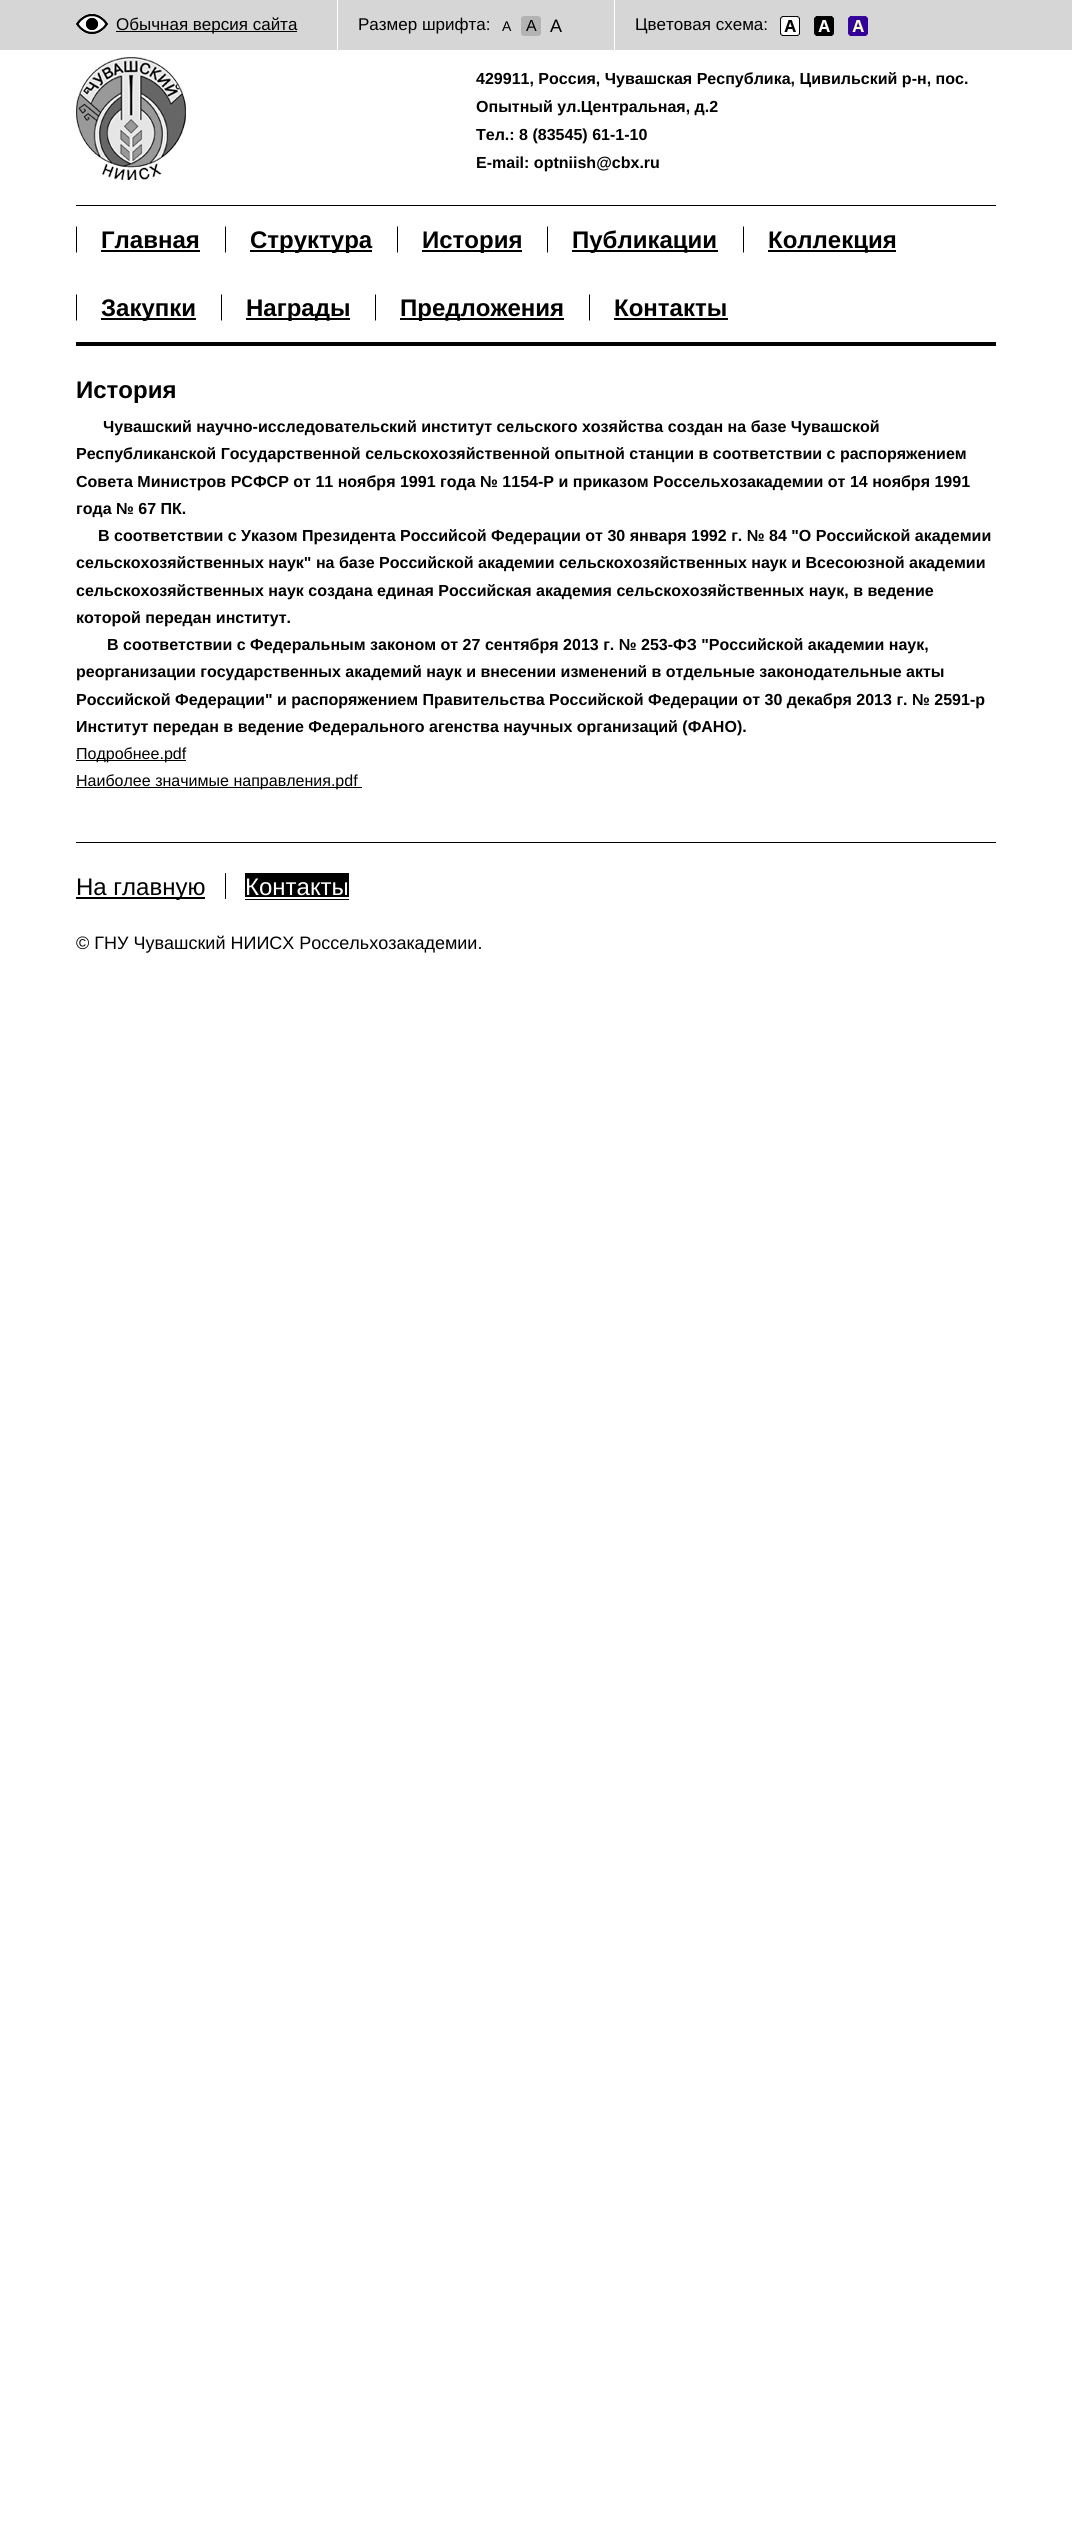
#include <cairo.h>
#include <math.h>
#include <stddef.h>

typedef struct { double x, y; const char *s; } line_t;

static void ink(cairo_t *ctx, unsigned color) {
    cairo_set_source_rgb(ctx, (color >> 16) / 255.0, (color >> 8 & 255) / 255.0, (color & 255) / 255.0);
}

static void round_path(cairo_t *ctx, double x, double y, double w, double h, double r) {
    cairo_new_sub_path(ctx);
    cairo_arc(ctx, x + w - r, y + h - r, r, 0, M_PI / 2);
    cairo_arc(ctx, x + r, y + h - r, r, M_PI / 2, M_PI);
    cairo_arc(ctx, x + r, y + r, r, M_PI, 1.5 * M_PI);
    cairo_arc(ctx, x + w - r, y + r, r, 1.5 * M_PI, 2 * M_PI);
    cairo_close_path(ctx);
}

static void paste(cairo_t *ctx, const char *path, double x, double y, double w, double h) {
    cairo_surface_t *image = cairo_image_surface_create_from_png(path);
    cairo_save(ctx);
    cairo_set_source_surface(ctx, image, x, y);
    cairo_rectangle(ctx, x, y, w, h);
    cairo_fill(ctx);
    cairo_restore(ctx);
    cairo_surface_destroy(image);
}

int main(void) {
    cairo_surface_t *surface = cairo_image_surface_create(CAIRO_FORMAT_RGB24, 1072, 2541);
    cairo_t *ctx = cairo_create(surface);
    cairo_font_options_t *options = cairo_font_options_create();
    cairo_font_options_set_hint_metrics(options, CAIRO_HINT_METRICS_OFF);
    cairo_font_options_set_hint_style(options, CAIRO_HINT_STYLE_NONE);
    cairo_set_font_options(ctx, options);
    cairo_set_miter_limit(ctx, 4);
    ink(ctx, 0xFFFFFF);
    cairo_paint(ctx);
    ink(ctx, 0xD6D6D6);
    cairo_rectangle(ctx, 0, 0, 1072, 50);
    cairo_fill(ctx);
    paste(ctx, "media/1.png", 76, 13, 32, 21);
    ink(ctx, 0xFFFFFF);
    cairo_rectangle(ctx, 337, 0, 1, 50);
    cairo_fill(ctx);
    ink(ctx, 0x000000);
    cairo_rectangle(ctx, 116, 31, 181, 1);
    cairo_fill(ctx);
    cairo_select_font_face(ctx, "Liberation Sans", CAIRO_FONT_SLANT_NORMAL, CAIRO_FONT_WEIGHT_NORMAL);
    cairo_set_font_size(ctx, 17);
    cairo_move_to(ctx, 116, 30);
    cairo_show_text(ctx, "Обычная версия сайта");
    ink(ctx, 0xFFFFFF);
    cairo_rectangle(ctx, 614, 0, 1, 50);
    cairo_fill(ctx);
    ink(ctx, 0x000000);
    cairo_move_to(ctx, 358, 30);
    cairo_show_text(ctx, "Размер шрифта:");
    cairo_set_font_size(ctx, 14);
    cairo_move_to(ctx, 502, 31);
    cairo_show_text(ctx, "A");
    ink(ctx, 0xB3B3B3);
    round_path(ctx, 521, 16, 20, 20, 3);
    cairo_fill(ctx);
    cairo_set_font_size(ctx, 16);
    ink(ctx, 0x000000);
    cairo_move_to(ctx, 526, 31);
    cairo_show_text(ctx, "A");
    cairo_set_font_size(ctx, 18);
    cairo_move_to(ctx, 550, 32);
    cairo_show_text(ctx, "A");
    cairo_set_font_size(ctx, 17);
    cairo_move_to(ctx, 635, 30);
    cairo_show_text(ctx, "Цветовая схема:");
    paste(ctx, "media/2.png", 780, 16, 20, 20);
    paste(ctx, "media/3.png", 814, 16, 20, 20);
    paste(ctx, "media/4.png", 848, 16, 20, 20);
    paste(ctx, "media/5.png", 76, 57, 110, 123);
    cairo_select_font_face(ctx, "Liberation Sans", CAIRO_FONT_SLANT_NORMAL, CAIRO_FONT_WEIGHT_BOLD);
    cairo_set_font_size(ctx, 16.02);
    {
        static const line_t items[] = {
            {476, 84, "429911, Россия, Чувашская Республика, Цивильский р-н, пос."},
            {476, 112, "Опытный ул.Центральная, д.2"},
            {476, 140, "Тел.: 8 (83545) 61-1-10"},
            {476, 168, "E-mail: optniish@cbx.ru"},
        };
        for (size_t i = 0; i < sizeof items / sizeof *items; i++) {
            cairo_move_to(ctx, items[i].x, items[i].y);
            cairo_show_text(ctx, items[i].s);
        }
    }
    cairo_rectangle(ctx, 76, 205, 920, 1);
    cairo_fill(ctx);
    cairo_rectangle(ctx, 76, 342, 920, 4);
    cairo_fill(ctx);
    paste(ctx, "media/6.png", 76, 226, 1, 27);
    cairo_set_font_size(ctx, 24);
    cairo_move_to(ctx, 101, 248);
    cairo_show_text(ctx, "Главная");
    cairo_rectangle(ctx, 101, 250, 99, 2);
    cairo_fill(ctx);
    paste(ctx, "media/6.png", 225, 226, 1, 27);
    cairo_rectangle(ctx, 250, 250, 122, 2);
    cairo_fill(ctx);
    cairo_move_to(ctx, 250, 248);
    cairo_show_text(ctx, "Структура");
    paste(ctx, "media/6.png", 397, 226, 1, 27);
    cairo_rectangle(ctx, 422, 250, 100, 2);
    cairo_fill(ctx);
    cairo_move_to(ctx, 422, 248);
    cairo_show_text(ctx, "История");
    paste(ctx, "media/6.png", 547, 226, 1, 27);
    cairo_rectangle(ctx, 572, 250, 146, 2);
    cairo_fill(ctx);
    cairo_move_to(ctx, 572, 248);
    cairo_show_text(ctx, "Публикации");
    paste(ctx, "media/6.png", 743, 226, 1, 27);
    cairo_rectangle(ctx, 768, 250, 128, 2);
    cairo_fill(ctx);
    cairo_move_to(ctx, 768, 248);
    cairo_show_text(ctx, "Коллекция");
    paste(ctx, "media/6.png", 76, 294, 1, 27);
    cairo_rectangle(ctx, 101, 318, 95, 2);
    cairo_fill(ctx);
    cairo_move_to(ctx, 101, 316);
    cairo_show_text(ctx, "Закупки");
    paste(ctx, "media/6.png", 221, 294, 1, 27);
    cairo_rectangle(ctx, 246, 318, 104, 2);
    cairo_fill(ctx);
    cairo_move_to(ctx, 246, 316);
    cairo_show_text(ctx, "Награды");
    paste(ctx, "media/6.png", 375, 294, 1, 27);
    cairo_rectangle(ctx, 400, 318, 164, 2);
    cairo_fill(ctx);
    cairo_move_to(ctx, 400, 316);
    cairo_show_text(ctx, "Предложения");
    paste(ctx, "media/6.png", 589, 294, 1, 27);
    cairo_move_to(ctx, 614, 316);
    cairo_show_text(ctx, "Контакты");
    cairo_rectangle(ctx, 614, 318, 114, 2);
    cairo_fill(ctx);
    cairo_move_to(ctx, 76, 398);
    cairo_show_text(ctx, "История");
    cairo_set_font_size(ctx, 16.02);
    {
        static const line_t items[] = {
            {103, 432, "Чувашский научно-исследовательский институт сельского хозяйства создан на базе Чувашской"},
            {76, 459, "Республиканской Государственной сельскохозяйственной опытной станции в соответствии с распоряжением"},
            {76, 487, "Совета Министров РСФСР от 11 ноября 1991 года № 1154-Р и приказом Россельхозакадемии от 14 ноября 1991"},
            {76, 514, "года № 67 ПК."},
            {98, 541, "В соответствии с Указом Президента Российсой Федерации от 30 января 1992 г. № 84 \"О Российской академии"},
            {76, 568, "сельскохозяйственных наук\" на базе Российской академии сельскохозяйственных наук и Всесоюзной академии"},
            {76, 596, "сельскохозяйственных наук создана единая Российская академия сельскохозяйственных наук, в ведение"},
            {76, 623, "которой передан институт."},
            {107, 650, "В соответствии с Федеральным законом от 27 сентября 2013 г. № 253-ФЗ \"Российской академии наук,"},
            {76, 677, "реорганизации государственных академий наук и внесении изменений в отдельные законодательные акты"},
            {76, 705, "Российской Федерации\" и распоряжением Правительства Российской Федерации от 30 декабря 2013 г. № 2591-р"},
            {76, 732, "Институт передан в ведение Федерального агенства научных организаций (ФАНО)."},
        };
        for (size_t i = 0; i < sizeof items / sizeof *items; i++) {
            cairo_move_to(ctx, items[i].x, items[i].y);
            cairo_show_text(ctx, items[i].s);
        }
    }
    cairo_rectangle(ctx, 76, 760, 110, 1);
    cairo_fill(ctx);
    cairo_select_font_face(ctx, "Liberation Sans", CAIRO_FONT_SLANT_NORMAL, CAIRO_FONT_WEIGHT_NORMAL);
    cairo_move_to(ctx, 76, 759);
    cairo_show_text(ctx, "Подробнее.pdf");
    cairo_rectangle(ctx, 76, 787, 286, 1);
    cairo_fill(ctx);
    cairo_move_to(ctx, 76, 786);
    cairo_show_text(ctx, "Наиболее значимые направления.pdf");
    cairo_rectangle(ctx, 76, 842, 920, 1);
    cairo_fill(ctx);
    cairo_rectangle(ctx, 76, 897, 129, 2);
    cairo_fill(ctx);
    cairo_set_font_size(ctx, 24);
    cairo_move_to(ctx, 76, 895);
    cairo_show_text(ctx, "На главную");
    paste(ctx, "media/7.png", 225, 873, 1, 26);
    cairo_rectangle(ctx, 245, 873, 104, 27);
    cairo_fill(ctx);
    ink(ctx, 0xFFFFFF);
    cairo_move_to(ctx, 245, 895);
    cairo_show_text(ctx, "Контакты");
    cairo_rectangle(ctx, 245, 897, 104, 2);
    cairo_fill(ctx);
    cairo_set_font_size(ctx, 18);
    ink(ctx, 0x000000);
    cairo_move_to(ctx, 76, 949);
    cairo_show_text(ctx, "© ГНУ Чувашский НИИСХ Россельхозакадемии.");
    cairo_surface_write_to_png(surface, "image.png");
    cairo_font_options_destroy(options);
    cairo_destroy(ctx);
    cairo_surface_destroy(surface);
    return 0;
}
